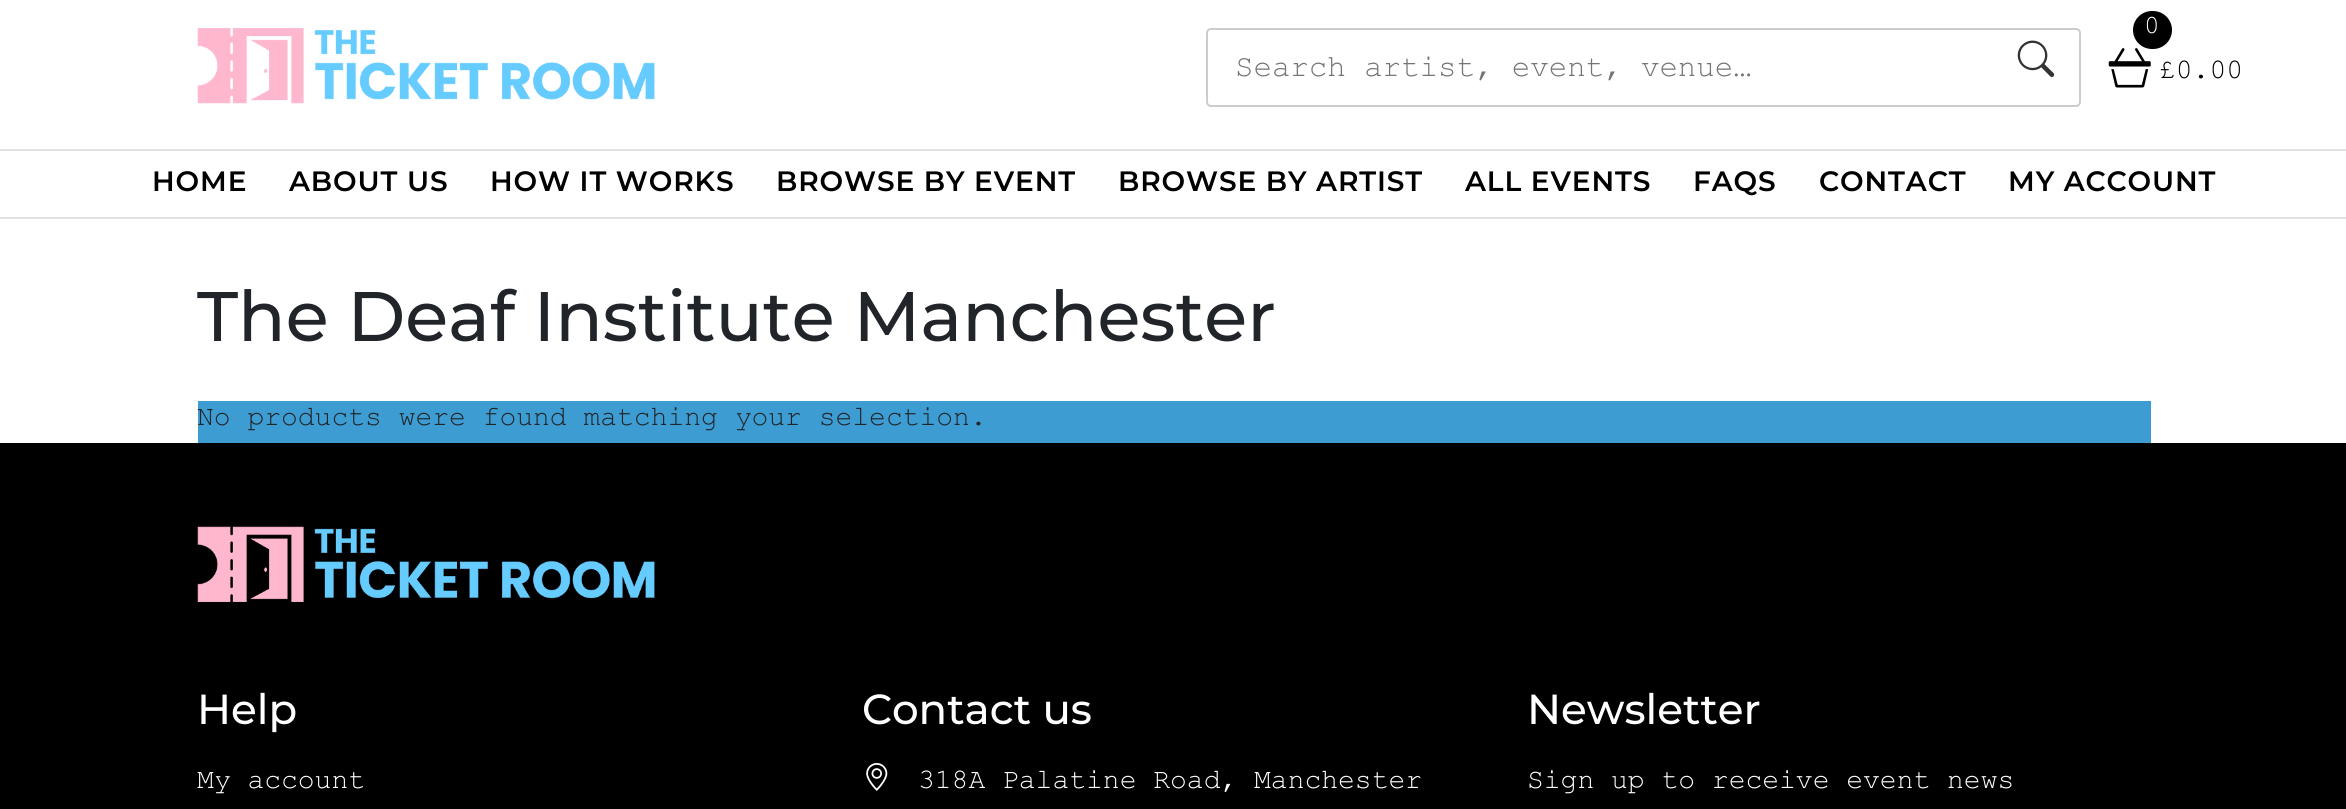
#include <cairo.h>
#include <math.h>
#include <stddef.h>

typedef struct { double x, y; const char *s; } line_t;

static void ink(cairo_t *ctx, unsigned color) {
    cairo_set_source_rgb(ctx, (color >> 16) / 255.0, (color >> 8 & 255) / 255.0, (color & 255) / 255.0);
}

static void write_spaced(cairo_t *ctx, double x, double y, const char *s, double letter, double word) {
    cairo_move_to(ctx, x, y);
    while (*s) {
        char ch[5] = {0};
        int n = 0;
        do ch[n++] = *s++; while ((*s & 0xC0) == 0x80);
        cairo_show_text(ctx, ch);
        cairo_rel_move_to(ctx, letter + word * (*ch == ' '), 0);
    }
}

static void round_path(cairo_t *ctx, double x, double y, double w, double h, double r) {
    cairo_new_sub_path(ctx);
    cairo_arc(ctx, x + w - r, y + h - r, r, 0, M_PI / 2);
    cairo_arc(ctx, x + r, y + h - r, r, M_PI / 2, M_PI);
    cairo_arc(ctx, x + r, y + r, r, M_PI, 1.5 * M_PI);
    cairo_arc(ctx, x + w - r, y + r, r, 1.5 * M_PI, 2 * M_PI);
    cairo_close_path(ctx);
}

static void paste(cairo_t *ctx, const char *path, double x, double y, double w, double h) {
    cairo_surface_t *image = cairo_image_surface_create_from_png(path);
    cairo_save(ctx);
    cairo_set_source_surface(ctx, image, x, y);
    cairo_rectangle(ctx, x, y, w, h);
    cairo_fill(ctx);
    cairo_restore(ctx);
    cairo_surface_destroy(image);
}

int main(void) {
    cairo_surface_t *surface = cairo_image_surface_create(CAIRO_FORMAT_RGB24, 2346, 809);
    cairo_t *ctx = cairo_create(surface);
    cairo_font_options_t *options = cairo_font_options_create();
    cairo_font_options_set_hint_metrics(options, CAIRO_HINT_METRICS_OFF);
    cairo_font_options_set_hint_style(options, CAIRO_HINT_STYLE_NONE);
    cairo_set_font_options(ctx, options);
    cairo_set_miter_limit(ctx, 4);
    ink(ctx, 0xFFFFFF);
    cairo_paint(ctx);
    paste(ctx, "media/1.png", 197, 28, 458, 76);
    round_path(ctx, 1207, 29, 873, 77, 4);
    ink(ctx, 0xCCCCCC);
    cairo_stroke(ctx);
    cairo_select_font_face(ctx, "Courier New", CAIRO_FONT_SLANT_NORMAL, CAIRO_FONT_WEIGHT_NORMAL);
    cairo_set_font_size(ctx, 30.75);
    ink(ctx, 0x757575);
    cairo_move_to(ctx, 1235, 76);
    cairo_show_text(ctx, "Search artist, event, venue…");
    paste(ctx, "media/2.png", 2017, 40, 38, 37);
    paste(ctx, "media/3.png", 2108, 48, 43, 40);
    ink(ctx, 0x000000);
    round_path(ctx, 2133, 11, 39, 38, 19);
    cairo_fill(ctx);
    cairo_set_font_size(ctx, 26);
    ink(ctx, 0xFFFFFF);
    cairo_move_to(ctx, 2144, 33);
    cairo_show_text(ctx, "0");
    cairo_set_font_size(ctx, 28);
    ink(ctx, 0x000000);
    cairo_move_to(ctx, 2159, 78);
    cairo_show_text(ctx, "£0.00");
    ink(ctx, 0xE1E1E1);
    cairo_rectangle(ctx, 0, 149, 2346, 2);
    cairo_fill(ctx);
    cairo_rectangle(ctx, 0, 217, 2346, 2);
    cairo_fill(ctx);
    cairo_select_font_face(ctx, "Montserrat SemiBold", CAIRO_FONT_SLANT_NORMAL, CAIRO_FONT_WEIGHT_NORMAL);
    ink(ctx, 0x000000);
    {
        static const line_t items[] = {
            {152, 191, "HOME"},
            {289, 191, "ABOUT US"},
            {490, 191, "HOW IT WORKS"},
            {776, 191, "BROWSE BY EVENT"},
            {1118, 191, "BROWSE BY ARTIST"},
            {1465, 191, "ALL EVENTS"},
            {1693, 191, "FAQS"},
            {1819, 191, "CONTACT"},
            {2008, 191, "MY ACCOUNT"},
        };
        for (size_t i = 0; i < sizeof items / sizeof *items; i++) {
            write_spaced(ctx, items[i].x, items[i].y, items[i].s, 0.9, 0);
        }
    }
    cairo_select_font_face(ctx, "Montserrat Medium", CAIRO_FONT_SLANT_NORMAL, CAIRO_FONT_WEIGHT_NORMAL);
    cairo_set_font_size(ctx, 70);
    ink(ctx, 0x212529);
    cairo_move_to(ctx, 197, 341);
    cairo_show_text(ctx, "The Deaf Institute Manchester");
    ink(ctx, 0x3D9CD2);
    cairo_rectangle(ctx, 198, 401, 1953, 42);
    cairo_fill(ctx);
    cairo_select_font_face(ctx, "Courier New", CAIRO_FONT_SLANT_NORMAL, CAIRO_FONT_WEIGHT_NORMAL);
    cairo_set_font_size(ctx, 28);
    ink(ctx, 0x212529);
    cairo_move_to(ctx, 197, 425);
    cairo_show_text(ctx, "No products were found matching your selection.");
    ink(ctx, 0x000000);
    cairo_rectangle(ctx, 0, 443, 2346, 366);
    cairo_fill(ctx);
    paste(ctx, "media/4.png", 197, 526, 458, 76);
    cairo_select_font_face(ctx, "Montserrat Medium", CAIRO_FONT_SLANT_NORMAL, CAIRO_FONT_WEIGHT_NORMAL);
    cairo_set_font_size(ctx, 42);
    ink(ctx, 0xFFFFFF);
    cairo_move_to(ctx, 197, 724);
    cairo_show_text(ctx, "Help");
    cairo_select_font_face(ctx, "Courier New", CAIRO_FONT_SLANT_NORMAL, CAIRO_FONT_WEIGHT_NORMAL);
    cairo_set_font_size(ctx, 28);
    cairo_move_to(ctx, 197, 788);
    cairo_show_text(ctx, "My account");
    cairo_select_font_face(ctx, "Montserrat Medium", CAIRO_FONT_SLANT_NORMAL, CAIRO_FONT_WEIGHT_NORMAL);
    cairo_set_font_size(ctx, 42);
    cairo_move_to(ctx, 862, 724);
    cairo_show_text(ctx, "Contact us");
    paste(ctx, "media/5.png", 866, 763, 22, 28);
    cairo_select_font_face(ctx, "Courier New", CAIRO_FONT_SLANT_NORMAL, CAIRO_FONT_WEIGHT_NORMAL);
    cairo_set_font_size(ctx, 28);
    cairo_move_to(ctx, 918, 788);
    cairo_show_text(ctx, "318A Palatine Road, Manchester");
    cairo_select_font_face(ctx, "Montserrat Medium", CAIRO_FONT_SLANT_NORMAL, CAIRO_FONT_WEIGHT_NORMAL);
    cairo_set_font_size(ctx, 42);
    cairo_move_to(ctx, 1527, 724);
    cairo_show_text(ctx, "Newsletter");
    cairo_select_font_face(ctx, "Courier New", CAIRO_FONT_SLANT_NORMAL, CAIRO_FONT_WEIGHT_NORMAL);
    cairo_set_font_size(ctx, 28);
    cairo_move_to(ctx, 1527, 788);
    cairo_show_text(ctx, "Sign up to receive event news");
    cairo_surface_write_to_png(surface, "image.png");
    cairo_font_options_destroy(options);
    cairo_destroy(ctx);
    cairo_surface_destroy(surface);
    return 0;
}
